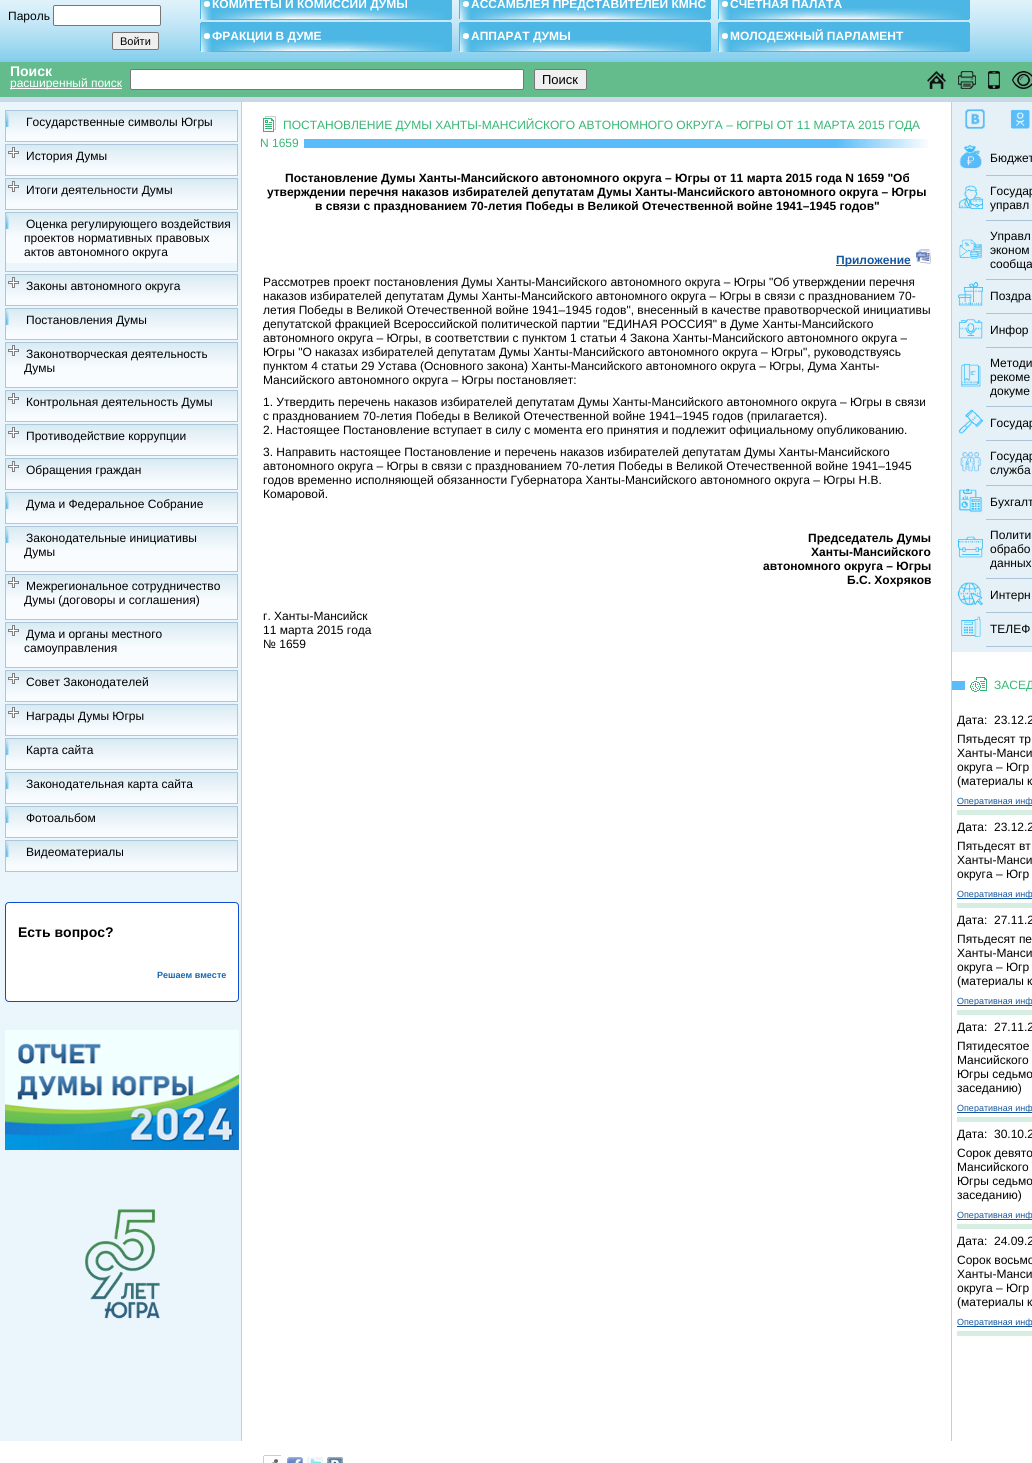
#include <cairo.h>
#include <math.h>
#include <stddef.h>

typedef struct { double x, y; const char *s; } line_t;

static void ink(cairo_t *ctx, unsigned color) {
    cairo_set_source_rgb(ctx, (color >> 16) / 255.0, (color >> 8 & 255) / 255.0, (color & 255) / 255.0);
}

static void round_path(cairo_t *ctx, double x, double y, double w, double h, double r) {
    cairo_new_sub_path(ctx);
    cairo_arc(ctx, x + w - r, y + h - r, r, 0, M_PI / 2);
    cairo_arc(ctx, x + r, y + h - r, r, M_PI / 2, M_PI);
    cairo_arc(ctx, x + r, y + r, r, M_PI, 1.5 * M_PI);
    cairo_arc(ctx, x + w - r, y + r, r, 1.5 * M_PI, 2 * M_PI);
    cairo_close_path(ctx);
}

static void paste(cairo_t *ctx, const char *path, double x, double y, double w, double h) {
    cairo_surface_t *image = cairo_image_surface_create_from_png(path);
    cairo_save(ctx);
    cairo_set_source_surface(ctx, image, x, y);
    cairo_rectangle(ctx, x, y, w, h);
    cairo_fill(ctx);
    cairo_restore(ctx);
    cairo_surface_destroy(image);
}

int main(void) {
    cairo_surface_t *surface = cairo_image_surface_create(CAIRO_FORMAT_RGB24, 1032, 1463);
    cairo_t *ctx = cairo_create(surface);
    cairo_font_options_t *options = cairo_font_options_create();
    cairo_font_options_set_hint_metrics(options, CAIRO_HINT_METRICS_OFF);
    cairo_font_options_set_hint_style(options, CAIRO_HINT_STYLE_NONE);
    cairo_set_font_options(ctx, options);
    cairo_set_miter_limit(ctx, 4);
    ink(ctx, 0xFFFFFF);
    cairo_paint(ctx);
    paste(ctx, "media/1.png", 0, 0, 1032, 102);
    paste(ctx, "media/2.png", 200, 0, 252, 20);
    cairo_select_font_face(ctx, "Liberation Sans", CAIRO_FONT_SLANT_NORMAL, CAIRO_FONT_WEIGHT_BOLD);
    cairo_set_font_size(ctx, 12);
    ink(ctx, 0xFFFFFF);
    cairo_move_to(ctx, 212, 8);
    cairo_show_text(ctx, "КОМИТЕТЫ И КОМИССИИ ДУМЫ");
    paste(ctx, "media/2.png", 459, 0, 252, 20);
    cairo_move_to(ctx, 471, 8);
    cairo_show_text(ctx, "АССАМБЛЕЯ ПРЕДСТАВИТЕЛЕЙ КМНС");
    paste(ctx, "media/2.png", 718, 0, 252, 20);
    cairo_move_to(ctx, 730, 8);
    cairo_show_text(ctx, "СЧЕТНАЯ ПАЛАТА");
    paste(ctx, "media/3.png", 200, 22, 252, 30);
    cairo_move_to(ctx, 212, 40);
    cairo_show_text(ctx, "ФРАКЦИИ В ДУМЕ");
    paste(ctx, "media/3.png", 459, 22, 252, 30);
    cairo_move_to(ctx, 471, 40);
    cairo_show_text(ctx, "АППАРАТ ДУМЫ");
    paste(ctx, "media/3.png", 718, 22, 252, 30);
    cairo_move_to(ctx, 730, 40);
    cairo_show_text(ctx, "МОЛОДЕЖНЫЙ ПАРЛАМЕНТ");
    ink(ctx, 0x64BC8D);
    cairo_rectangle(ctx, 0, 62, 1032, 35);
    cairo_fill(ctx);
    cairo_set_font_size(ctx, 14);
    ink(ctx, 0xFFFFFF);
    cairo_move_to(ctx, 10, 76);
    cairo_show_text(ctx, "Поиск");
    cairo_rectangle(ctx, 10, 88, 112, 1);
    cairo_fill(ctx);
    cairo_select_font_face(ctx, "Liberation Sans", CAIRO_FONT_SLANT_NORMAL, CAIRO_FONT_WEIGHT_NORMAL);
    cairo_set_font_size(ctx, 12);
    cairo_move_to(ctx, 10, 87);
    cairo_show_text(ctx, "расширенный поиск");
    round_path(ctx, 130.5, 69.5, 393, 20, 1.5);
    cairo_fill_preserve(ctx);
    ink(ctx, 0x767676);
    cairo_set_line_width(ctx, 1);
    cairo_stroke(ctx);
    ink(ctx, 0xEFEFEF);
    round_path(ctx, 534.5, 69.5, 52, 20, 1.5);
    cairo_fill_preserve(ctx);
    ink(ctx, 0x767676);
    cairo_stroke(ctx);
    cairo_set_font_size(ctx, 13);
    ink(ctx, 0x000000);
    cairo_move_to(ctx, 542, 84);
    cairo_show_text(ctx, "Поиск");
    paste(ctx, "media/4.png", 927, 71, 19, 18);
    paste(ctx, "media/5.png", 958, 71, 18, 18);
    paste(ctx, "media/6.png", 988, 71, 12, 18);
    paste(ctx, "media/7.png", 1012, 71, 20, 18);
    cairo_set_font_size(ctx, 12);
    cairo_move_to(ctx, 8, 20);
    cairo_show_text(ctx, "Пароль");
    ink(ctx, 0xFFFFFF);
    round_path(ctx, 53.5, 5.5, 107, 20, 1.5);
    cairo_fill_preserve(ctx);
    ink(ctx, 0x767676);
    cairo_stroke(ctx);
    ink(ctx, 0xEFEFEF);
    round_path(ctx, 112.5, 32.5, 46, 17, 1.5);
    cairo_fill_preserve(ctx);
    ink(ctx, 0x767676);
    cairo_stroke(ctx);
    cairo_set_font_size(ctx, 11);
    ink(ctx, 0x000000);
    cairo_move_to(ctx, 120, 45);
    cairo_show_text(ctx, "Войти");
    ink(ctx, 0xEAF6FC);
    cairo_rectangle(ctx, 0, 102, 241, 1339);
    cairo_fill(ctx);
    ink(ctx, 0xB1DDC5);
    cairo_rectangle(ctx, 241, 102, 1, 1339);
    cairo_fill(ctx);
    paste(ctx, "media/8.png", 6, 111, 231, 30);
    cairo_rectangle(ctx, 5.5, 110.5, 232, 31);
    ink(ctx, 0xAEC6DA);
    cairo_stroke(ctx);
    paste(ctx, "media/9.png", 6, 111, 5, 16);
    cairo_set_font_size(ctx, 12);
    ink(ctx, 0x000000);
    cairo_move_to(ctx, 26, 126);
    cairo_show_text(ctx, "Государственные символы Югры");
    paste(ctx, "media/8.png", 6, 145, 231, 30);
    cairo_rectangle(ctx, 5.5, 144.5, 232, 31);
    ink(ctx, 0xAEC6DA);
    cairo_stroke(ctx);
    paste(ctx, "media/10.png", 8, 147, 11, 11);
    ink(ctx, 0x000000);
    cairo_move_to(ctx, 26, 160);
    cairo_show_text(ctx, "История Думы");
    paste(ctx, "media/8.png", 6, 179, 231, 30);
    cairo_rectangle(ctx, 5.5, 178.5, 232, 31);
    ink(ctx, 0xAEC6DA);
    cairo_stroke(ctx);
    paste(ctx, "media/10.png", 8, 181, 11, 11);
    ink(ctx, 0x000000);
    cairo_move_to(ctx, 26, 194);
    cairo_show_text(ctx, "Итоги деятельности Думы");
    paste(ctx, "media/11.png", 6, 213, 231, 50);
    cairo_rectangle(ctx, 5.5, 212.5, 232, 59);
    ink(ctx, 0xAEC6DA);
    cairo_stroke(ctx);
    paste(ctx, "media/9.png", 6, 213, 5, 16);
    ink(ctx, 0x000000);
    {
        static const line_t items[] = {
            {26, 228, "Оценка регулирующего воздействия"},
            {24, 242, "проектов нормативных правовых"},
            {24, 256, "актов автономного округа"},
        };
        for (size_t i = 0; i < sizeof items / sizeof *items; i++) {
            cairo_move_to(ctx, items[i].x, items[i].y);
            cairo_show_text(ctx, items[i].s);
        }
    }
    paste(ctx, "media/8.png", 6, 275, 231, 30);
    cairo_rectangle(ctx, 5.5, 274.5, 232, 31);
    ink(ctx, 0xAEC6DA);
    cairo_stroke(ctx);
    paste(ctx, "media/10.png", 8, 277, 11, 11);
    ink(ctx, 0x000000);
    cairo_move_to(ctx, 26, 290);
    cairo_show_text(ctx, "Законы автономного округа");
    paste(ctx, "media/8.png", 6, 309, 231, 30);
    cairo_rectangle(ctx, 5.5, 308.5, 232, 31);
    ink(ctx, 0xAEC6DA);
    cairo_stroke(ctx);
    paste(ctx, "media/9.png", 6, 309, 5, 16);
    ink(ctx, 0x000000);
    cairo_move_to(ctx, 26, 324);
    cairo_show_text(ctx, "Постановления Думы");
    paste(ctx, "media/12.png", 6, 343, 231, 44);
    cairo_rectangle(ctx, 5.5, 342.5, 232, 45);
    ink(ctx, 0xAEC6DA);
    cairo_stroke(ctx);
    paste(ctx, "media/10.png", 8, 345, 11, 11);
    ink(ctx, 0x000000);
    cairo_move_to(ctx, 26, 358);
    cairo_show_text(ctx, "Законотворческая деятельность");
    cairo_move_to(ctx, 24, 372);
    cairo_show_text(ctx, "Думы");
    paste(ctx, "media/8.png", 6, 391, 231, 30);
    cairo_rectangle(ctx, 5.5, 390.5, 232, 31);
    ink(ctx, 0xAEC6DA);
    cairo_stroke(ctx);
    paste(ctx, "media/10.png", 8, 393, 11, 11);
    ink(ctx, 0x000000);
    cairo_move_to(ctx, 26, 406);
    cairo_show_text(ctx, "Контрольная деятельность Думы");
    paste(ctx, "media/8.png", 6, 425, 231, 30);
    cairo_rectangle(ctx, 5.5, 424.5, 232, 31);
    ink(ctx, 0xAEC6DA);
    cairo_stroke(ctx);
    paste(ctx, "media/10.png", 8, 427, 11, 11);
    ink(ctx, 0x000000);
    cairo_move_to(ctx, 26, 440);
    cairo_show_text(ctx, "Противодействие коррупции");
    paste(ctx, "media/8.png", 6, 459, 231, 30);
    cairo_rectangle(ctx, 5.5, 458.5, 232, 31);
    ink(ctx, 0xAEC6DA);
    cairo_stroke(ctx);
    paste(ctx, "media/10.png", 8, 461, 11, 11);
    ink(ctx, 0x000000);
    cairo_move_to(ctx, 26, 474);
    cairo_show_text(ctx, "Обращения граждан");
    paste(ctx, "media/8.png", 6, 493, 231, 30);
    cairo_rectangle(ctx, 5.5, 492.5, 232, 31);
    ink(ctx, 0xAEC6DA);
    cairo_stroke(ctx);
    paste(ctx, "media/9.png", 6, 493, 5, 16);
    ink(ctx, 0x000000);
    cairo_move_to(ctx, 26, 508);
    cairo_show_text(ctx, "Дума и Федеральное Собрание");
    paste(ctx, "media/12.png", 6, 527, 231, 44);
    cairo_rectangle(ctx, 5.5, 526.5, 232, 45);
    ink(ctx, 0xAEC6DA);
    cairo_stroke(ctx);
    paste(ctx, "media/9.png", 6, 527, 5, 16);
    ink(ctx, 0x000000);
    cairo_move_to(ctx, 26, 542);
    cairo_show_text(ctx, "Законодательные инициативы");
    cairo_move_to(ctx, 24, 556);
    cairo_show_text(ctx, "Думы");
    paste(ctx, "media/12.png", 6, 575, 231, 44);
    cairo_rectangle(ctx, 5.5, 574.5, 232, 45);
    ink(ctx, 0xAEC6DA);
    cairo_stroke(ctx);
    paste(ctx, "media/10.png", 8, 577, 11, 11);
    ink(ctx, 0x000000);
    cairo_move_to(ctx, 26, 590);
    cairo_show_text(ctx, "Межрегиональное сотрудничество");
    cairo_move_to(ctx, 24, 604);
    cairo_show_text(ctx, "Думы (договоры и соглашения)");
    paste(ctx, "media/12.png", 6, 623, 231, 44);
    cairo_rectangle(ctx, 5.5, 622.5, 232, 45);
    ink(ctx, 0xAEC6DA);
    cairo_stroke(ctx);
    paste(ctx, "media/10.png", 8, 625, 11, 11);
    ink(ctx, 0x000000);
    cairo_move_to(ctx, 26, 638);
    cairo_show_text(ctx, "Дума и органы местного");
    cairo_move_to(ctx, 24, 652);
    cairo_show_text(ctx, "самоуправления");
    paste(ctx, "media/8.png", 6, 671, 231, 30);
    cairo_rectangle(ctx, 5.5, 670.5, 232, 31);
    ink(ctx, 0xAEC6DA);
    cairo_stroke(ctx);
    paste(ctx, "media/10.png", 8, 673, 11, 11);
    ink(ctx, 0x000000);
    cairo_move_to(ctx, 26, 686);
    cairo_show_text(ctx, "Совет Законодателей");
    paste(ctx, "media/8.png", 6, 705, 231, 30);
    cairo_rectangle(ctx, 5.5, 704.5, 232, 31);
    ink(ctx, 0xAEC6DA);
    cairo_stroke(ctx);
    paste(ctx, "media/10.png", 8, 707, 11, 11);
    ink(ctx, 0x000000);
    cairo_move_to(ctx, 26, 720);
    cairo_show_text(ctx, "Награды Думы Югры");
    paste(ctx, "media/8.png", 6, 739, 231, 30);
    cairo_rectangle(ctx, 5.5, 738.5, 232, 31);
    ink(ctx, 0xAEC6DA);
    cairo_stroke(ctx);
    paste(ctx, "media/9.png", 6, 739, 5, 16);
    ink(ctx, 0x000000);
    cairo_move_to(ctx, 26, 754);
    cairo_show_text(ctx, "Карта сайта");
    paste(ctx, "media/8.png", 6, 773, 231, 30);
    cairo_rectangle(ctx, 5.5, 772.5, 232, 31);
    ink(ctx, 0xAEC6DA);
    cairo_stroke(ctx);
    paste(ctx, "media/9.png", 6, 773, 5, 16);
    ink(ctx, 0x000000);
    cairo_move_to(ctx, 26, 788);
    cairo_show_text(ctx, "Законодательная карта сайта");
    paste(ctx, "media/8.png", 6, 807, 231, 30);
    cairo_rectangle(ctx, 5.5, 806.5, 232, 31);
    ink(ctx, 0xAEC6DA);
    cairo_stroke(ctx);
    paste(ctx, "media/9.png", 6, 807, 5, 16);
    ink(ctx, 0x000000);
    cairo_move_to(ctx, 26, 822);
    cairo_show_text(ctx, "Фотоальбом");
    paste(ctx, "media/8.png", 6, 841, 231, 30);
    cairo_rectangle(ctx, 5.5, 840.5, 232, 31);
    ink(ctx, 0xAEC6DA);
    cairo_stroke(ctx);
    paste(ctx, "media/9.png", 6, 841, 5, 16);
    ink(ctx, 0x000000);
    cairo_move_to(ctx, 26, 856);
    cairo_show_text(ctx, "Видеоматериалы");
    ink(ctx, 0xFFFFFF);
    round_path(ctx, 5.5, 902.5, 233, 99, 3.5);
    cairo_fill_preserve(ctx);
    ink(ctx, 0x0D4CD3);
    cairo_stroke(ctx);
    cairo_select_font_face(ctx, "Liberation Sans", CAIRO_FONT_SLANT_NORMAL, CAIRO_FONT_WEIGHT_BOLD);
    cairo_set_font_size(ctx, 14);
    ink(ctx, 0x000000);
    cairo_move_to(ctx, 18, 937);
    cairo_show_text(ctx, "Есть вопрос?");
    cairo_set_font_size(ctx, 9);
    ink(ctx, 0x1666B0);
    cairo_move_to(ctx, 157, 978);
    cairo_show_text(ctx, "Решаем вместе");
    paste(ctx, "media/13.png", 5, 1030, 234, 120);
    paste(ctx, "media/14.png", 85, 1209, 75, 110);
    paste(ctx, "media/15.png", 304, 139, 624, 9);
    paste(ctx, "media/16.png", 263, 116, 13, 16);
    cairo_select_font_face(ctx, "Liberation Sans", CAIRO_FONT_SLANT_NORMAL, CAIRO_FONT_WEIGHT_NORMAL);
    cairo_set_font_size(ctx, 12);
    ink(ctx, 0x36B674);
    cairo_move_to(ctx, 283, 129);
    cairo_show_text(ctx, "ПОСТАНОВЛЕНИЕ ДУМЫ ХАНТЫ-МАНСИЙСКОГО АВТОНОМНОГО ОКРУГА – ЮГРЫ ОТ 11 МАРТА 2015 ГОДА");
    cairo_move_to(ctx, 260, 147);
    cairo_show_text(ctx, "N 1659");
    cairo_select_font_face(ctx, "Liberation Sans", CAIRO_FONT_SLANT_NORMAL, CAIRO_FONT_WEIGHT_BOLD);
    ink(ctx, 0x000000);
    {
        static const line_t items[] = {
            {285, 182, "Постановление Думы Ханты-Мансийского автономного округа – Югры от 11 марта 2015 года N 1659 \"Об"},
            {267, 196, "утверждении перечня наказов избирателей депутатам Думы Ханты-Мансийского автономного округа – Югры"},
            {315, 210, "в связи с празднованием 70-летия Победы в Великой Отечественной войне 1941–1945 годов\""},
        };
        for (size_t i = 0; i < sizeof items / sizeof *items; i++) {
            cairo_move_to(ctx, items[i].x, items[i].y);
            cairo_show_text(ctx, items[i].s);
        }
    }
    ink(ctx, 0x15579F);
    cairo_rectangle(ctx, 836, 265, 75, 1);
    cairo_fill(ctx);
    cairo_move_to(ctx, 836, 264);
    cairo_show_text(ctx, "Приложение");
    paste(ctx, "media/17.png", 916, 249, 15, 15);
    cairo_select_font_face(ctx, "Liberation Sans", CAIRO_FONT_SLANT_NORMAL, CAIRO_FONT_WEIGHT_NORMAL);
    ink(ctx, 0x000000);
    {
        static const line_t items[] = {
            {263, 286, "Рассмотрев проект постановления Думы Ханты-Мансийского автономного округа – Югры \"Об утверждении перечня"},
            {263, 300, "наказов избирателей депутатам Думы Ханты-Мансийского автономного округа – Югры в связи с празднованием 70-"},
            {263, 314, "летия Победы в Великой Отечественной войне 1941–1945 годов\", внесенный в качестве правотворческой инициативы"},
            {263, 328, "депутатской фракцией Всероссийской политической партии \"ЕДИНАЯ РОССИЯ\" в Думе Ханты-Мансийского"},
            {263, 342, "автономного округа – Югры, в соответствии с пунктом 1 статьи 4 Закона Ханты-Мансийского автономного округа –"},
            {263, 356, "Югры \"О наказах избирателей депутатам Думы Ханты-Мансийского автономного округа – Югры\", руководствуясь"},
            {263, 370, "пунктом 4 статьи 29 Устава (Основного закона) Ханты-Мансийского автономного округа – Югры, Дума Ханты-"},
            {263, 384, "Мансийского автономного округа – Югры постановляет:"},
            {263, 406, "1. Утвердить перечень наказов избирателей депутатам Думы Ханты-Мансийского автономного округа – Югры в связи"},
            {263, 420, "с празднованием 70-летия Победы в Великой Отечественной войне 1941–1945 годов (прилагается)."},
            {263, 434, "2. Настоящее Постановление вступает в силу с момента его принятия и подлежит официальному опубликованию."},
            {263, 456, "3. Направить настоящее Постановление и перечень наказов избирателей депутатам Думы Ханты-Мансийского"},
            {263, 470, "автономного округа – Югры в связи с празднованием 70-летия Победы в Великой Отечественной войне 1941–1945"},
            {263, 484, "годов временно исполняющей обязанности Губернатора Ханты-Мансийского автономного округа – Югры Н.В."},
            {263, 498, "Комаровой."},
        };
        for (size_t i = 0; i < sizeof items / sizeof *items; i++) {
            cairo_move_to(ctx, items[i].x, items[i].y);
            cairo_show_text(ctx, items[i].s);
        }
    }
    cairo_select_font_face(ctx, "Liberation Sans", CAIRO_FONT_SLANT_NORMAL, CAIRO_FONT_WEIGHT_BOLD);
    {
        static const line_t items[] = {
            {808, 542, "Председатель Думы"},
            {811, 556, "Ханты-Мансийского"},
            {763, 570, "автономного округа – Югры"},
            {847, 584, "Б.С. Хохряков"},
        };
        for (size_t i = 0; i < sizeof items / sizeof *items; i++) {
            cairo_move_to(ctx, items[i].x, items[i].y);
            cairo_show_text(ctx, items[i].s);
        }
    }
    cairo_select_font_face(ctx, "Liberation Sans", CAIRO_FONT_SLANT_NORMAL, CAIRO_FONT_WEIGHT_NORMAL);
    {
        static const line_t items[] = {
            {263, 620, "г. Ханты-Мансийск"},
            {263, 634, "11 марта 2015 года"},
            {263, 648, "№ 1659"},
        };
        for (size_t i = 0; i < sizeof items / sizeof *items; i++) {
            cairo_move_to(ctx, items[i].x, items[i].y);
            cairo_show_text(ctx, items[i].s);
        }
    }
    paste(ctx, "media/18.png", 263, 1455, 18, 8);
    paste(ctx, "media/19.png", 287, 1457, 16, 6);
    paste(ctx, "media/20.png", 307, 1457, 16, 6);
    paste(ctx, "media/21.png", 327, 1457, 16, 6);
    ink(ctx, 0xB1DDC5);
    cairo_rectangle(ctx, 951, 102, 1, 1339);
    cairo_fill(ctx);
    ink(ctx, 0xE6F1F7);
    cairo_rectangle(ctx, 952, 102, 80, 550);
    cairo_fill(ctx);
    paste(ctx, "media/22.png", 965, 109, 20, 20);
    paste(ctx, "media/23.png", 1010, 109, 20, 20);
    paste(ctx, "media/24.png", 959, 144, 23, 25);
    ink(ctx, 0xAAC3D8);
    cairo_rectangle(ctx, 986, 175, 46, 1);
    cairo_fill(ctx);
    ink(ctx, 0x000000);
    cairo_move_to(ctx, 990, 162);
    cairo_show_text(ctx, "Бюджет");
    paste(ctx, "media/25.png", 958, 185, 25, 24);
    ink(ctx, 0xAAC3D8);
    cairo_rectangle(ctx, 986, 220, 46, 1);
    cairo_fill(ctx);
    ink(ctx, 0x000000);
    cairo_move_to(ctx, 990, 195);
    cairo_show_text(ctx, "Государ");
    cairo_move_to(ctx, 990, 209);
    cairo_show_text(ctx, "управл");
    paste(ctx, "media/26.png", 959, 239, 23, 20);
    ink(ctx, 0xAAC3D8);
    cairo_rectangle(ctx, 986, 279, 46, 1);
    cairo_fill(ctx);
    ink(ctx, 0x000000);
    {
        static const line_t items[] = {
            {990, 240, "Управл"},
            {990, 254, "эконом"},
            {990, 268, "сообща"},
        };
        for (size_t i = 0; i < sizeof items / sizeof *items; i++) {
            cairo_move_to(ctx, items[i].x, items[i].y);
            cairo_show_text(ctx, items[i].s);
        }
    }
    paste(ctx, "media/27.png", 958, 282, 25, 25);
    ink(ctx, 0xAAC3D8);
    cairo_rectangle(ctx, 986, 313, 46, 1);
    cairo_fill(ctx);
    ink(ctx, 0x000000);
    cairo_move_to(ctx, 990, 300);
    cairo_show_text(ctx, "Поздра");
    paste(ctx, "media/28.png", 958, 319, 25, 20);
    ink(ctx, 0xAAC3D8);
    cairo_rectangle(ctx, 986, 347, 46, 1);
    cairo_fill(ctx);
    ink(ctx, 0x000000);
    cairo_move_to(ctx, 990, 334);
    cairo_show_text(ctx, "Инфор");
    paste(ctx, "media/29.png", 961, 363, 20, 25);
    ink(ctx, 0xAAC3D8);
    cairo_rectangle(ctx, 986, 406, 46, 1);
    cairo_fill(ctx);
    ink(ctx, 0x000000);
    {
        static const line_t items[] = {
            {990, 367, "Методи"},
            {990, 381, "рекоме"},
            {990, 395, "докуме"},
        };
        for (size_t i = 0; i < sizeof items / sizeof *items; i++) {
            cairo_move_to(ctx, items[i].x, items[i].y);
            cairo_show_text(ctx, items[i].s);
        }
    }
    paste(ctx, "media/30.png", 958, 409, 25, 25);
    ink(ctx, 0xAAC3D8);
    cairo_rectangle(ctx, 986, 440, 46, 1);
    cairo_fill(ctx);
    ink(ctx, 0x000000);
    cairo_move_to(ctx, 990, 427);
    cairo_show_text(ctx, "Государ");
    paste(ctx, "media/31.png", 960, 451, 21, 21);
    ink(ctx, 0xAAC3D8);
    cairo_rectangle(ctx, 986, 485, 46, 1);
    cairo_fill(ctx);
    ink(ctx, 0x000000);
    cairo_move_to(ctx, 990, 460);
    cairo_show_text(ctx, "Государ");
    cairo_move_to(ctx, 990, 474);
    cairo_show_text(ctx, "служба");
    paste(ctx, "media/32.png", 958, 488, 25, 25);
    ink(ctx, 0xAAC3D8);
    cairo_rectangle(ctx, 986, 519, 46, 1);
    cairo_fill(ctx);
    ink(ctx, 0x000000);
    cairo_move_to(ctx, 990, 506);
    cairo_show_text(ctx, "Бухгалт");
    paste(ctx, "media/33.png", 958, 536, 25, 22);
    ink(ctx, 0xAAC3D8);
    cairo_rectangle(ctx, 986, 578, 46, 1);
    cairo_fill(ctx);
    ink(ctx, 0x000000);
    {
        static const line_t items[] = {
            {990, 539, "Полити"},
            {990, 553, "обрабо"},
            {990, 567, "данных"},
        };
        for (size_t i = 0; i < sizeof items / sizeof *items; i++) {
            cairo_move_to(ctx, items[i].x, items[i].y);
            cairo_show_text(ctx, items[i].s);
        }
    }
    paste(ctx, "media/34.png", 958, 582, 25, 24);
    ink(ctx, 0xAAC3D8);
    cairo_rectangle(ctx, 986, 612, 46, 1);
    cairo_fill(ctx);
    ink(ctx, 0x000000);
    cairo_move_to(ctx, 990, 599);
    cairo_show_text(ctx, "Интерн");
    paste(ctx, "media/35.png", 961, 616, 20, 21);
    ink(ctx, 0xAAC3D8);
    cairo_rectangle(ctx, 986, 646, 46, 1);
    cairo_fill(ctx);
    ink(ctx, 0x000000);
    cairo_move_to(ctx, 990, 633);
    cairo_show_text(ctx, "ТЕЛЕФ");
    ink(ctx, 0x5ABCF9);
    cairo_rectangle(ctx, 952, 681, 13, 9);
    cairo_fill(ctx);
    paste(ctx, "media/36.png", 965, 677, 26, 15);
    ink(ctx, 0x36B674);
    cairo_move_to(ctx, 994, 689);
    cairo_show_text(ctx, "ЗАСЕД");
    ink(ctx, 0xD6EDE1);
    cairo_rectangle(ctx, 957, 810, 75, 5);
    cairo_fill(ctx);
    ink(ctx, 0x000000);
    {
        static const line_t items[] = {
            {957, 724, "Дата:"},
            {994, 724, "23.12.2"},
            {957, 743, "Пятьдесят тр"},
            {957, 757, "Ханты-Манси"},
            {957, 771, "округа – Югр"},
            {957, 785, "(материалы к"},
        };
        for (size_t i = 0; i < sizeof items / sizeof *items; i++) {
            cairo_move_to(ctx, items[i].x, items[i].y);
            cairo_show_text(ctx, items[i].s);
        }
    }
    ink(ctx, 0x15579F);
    cairo_rectangle(ctx, 957, 805, 75, 1);
    cairo_fill(ctx);
    cairo_set_font_size(ctx, 9);
    cairo_move_to(ctx, 957, 804);
    cairo_show_text(ctx, "Оперативная инф");
    ink(ctx, 0xD6EDE1);
    cairo_rectangle(ctx, 957, 903, 75, 5);
    cairo_fill(ctx);
    cairo_set_font_size(ctx, 12);
    ink(ctx, 0x000000);
    {
        static const line_t items[] = {
            {957, 831, "Дата:"},
            {994, 831, "23.12.2"},
            {957, 850, "Пятьдесят вт"},
            {957, 864, "Ханты-Манси"},
            {957, 878, "округа – Югр"},
        };
        for (size_t i = 0; i < sizeof items / sizeof *items; i++) {
            cairo_move_to(ctx, items[i].x, items[i].y);
            cairo_show_text(ctx, items[i].s);
        }
    }
    ink(ctx, 0x15579F);
    cairo_rectangle(ctx, 957, 898, 75, 1);
    cairo_fill(ctx);
    cairo_set_font_size(ctx, 9);
    cairo_move_to(ctx, 957, 897);
    cairo_show_text(ctx, "Оперативная инф");
    ink(ctx, 0xD6EDE1);
    cairo_rectangle(ctx, 957, 1010, 75, 5);
    cairo_fill(ctx);
    cairo_set_font_size(ctx, 12);
    ink(ctx, 0x000000);
    {
        static const line_t items[] = {
            {957, 924, "Дата:"},
            {994, 924, "27.11.2"},
            {957, 943, "Пятьдесят пе"},
            {957, 957, "Ханты-Манси"},
            {957, 971, "округа – Югр"},
            {957, 985, "(материалы к"},
        };
        for (size_t i = 0; i < sizeof items / sizeof *items; i++) {
            cairo_move_to(ctx, items[i].x, items[i].y);
            cairo_show_text(ctx, items[i].s);
        }
    }
    ink(ctx, 0x15579F);
    cairo_rectangle(ctx, 957, 1005, 75, 1);
    cairo_fill(ctx);
    cairo_set_font_size(ctx, 9);
    cairo_move_to(ctx, 957, 1004);
    cairo_show_text(ctx, "Оперативная инф");
    ink(ctx, 0xD6EDE1);
    cairo_rectangle(ctx, 957, 1117, 75, 5);
    cairo_fill(ctx);
    cairo_set_font_size(ctx, 12);
    ink(ctx, 0x000000);
    {
        static const line_t items[] = {
            {957, 1031, "Дата:"},
            {994, 1031, "27.11.2"},
            {957, 1050, "Пятидесятое"},
            {957, 1064, "Мансийского"},
            {957, 1078, "Югры седьмо"},
            {957, 1092, "заседанию)"},
        };
        for (size_t i = 0; i < sizeof items / sizeof *items; i++) {
            cairo_move_to(ctx, items[i].x, items[i].y);
            cairo_show_text(ctx, items[i].s);
        }
    }
    ink(ctx, 0x15579F);
    cairo_rectangle(ctx, 957, 1112, 75, 1);
    cairo_fill(ctx);
    cairo_set_font_size(ctx, 9);
    cairo_move_to(ctx, 957, 1111);
    cairo_show_text(ctx, "Оперативная инф");
    ink(ctx, 0xD6EDE1);
    cairo_rectangle(ctx, 957, 1224, 75, 5);
    cairo_fill(ctx);
    cairo_set_font_size(ctx, 12);
    ink(ctx, 0x000000);
    {
        static const line_t items[] = {
            {957, 1138, "Дата:"},
            {994, 1138, "30.10.2"},
            {957, 1157, "Сорок девято"},
            {957, 1171, "Мансийского"},
            {957, 1185, "Югры седьмо"},
            {957, 1199, "заседанию)"},
        };
        for (size_t i = 0; i < sizeof items / sizeof *items; i++) {
            cairo_move_to(ctx, items[i].x, items[i].y);
            cairo_show_text(ctx, items[i].s);
        }
    }
    ink(ctx, 0x15579F);
    cairo_rectangle(ctx, 957, 1219, 75, 1);
    cairo_fill(ctx);
    cairo_set_font_size(ctx, 9);
    cairo_move_to(ctx, 957, 1218);
    cairo_show_text(ctx, "Оперативная инф");
    ink(ctx, 0xD6EDE1);
    cairo_rectangle(ctx, 957, 1331, 75, 5);
    cairo_fill(ctx);
    cairo_set_font_size(ctx, 12);
    ink(ctx, 0x000000);
    {
        static const line_t items[] = {
            {957, 1245, "Дата:"},
            {994, 1245, "24.09.2"},
            {957, 1264, "Сорок восьмо"},
            {957, 1278, "Ханты-Манси"},
            {957, 1292, "округа – Югр"},
            {957, 1306, "(материалы к"},
        };
        for (size_t i = 0; i < sizeof items / sizeof *items; i++) {
            cairo_move_to(ctx, items[i].x, items[i].y);
            cairo_show_text(ctx, items[i].s);
        }
    }
    ink(ctx, 0x15579F);
    cairo_rectangle(ctx, 957, 1326, 75, 1);
    cairo_fill(ctx);
    cairo_set_font_size(ctx, 9);
    cairo_move_to(ctx, 957, 1325);
    cairo_show_text(ctx, "Оперативная инф");
    cairo_surface_write_to_png(surface, "image.png");
    cairo_font_options_destroy(options);
    cairo_destroy(ctx);
    cairo_surface_destroy(surface);
    return 0;
}
